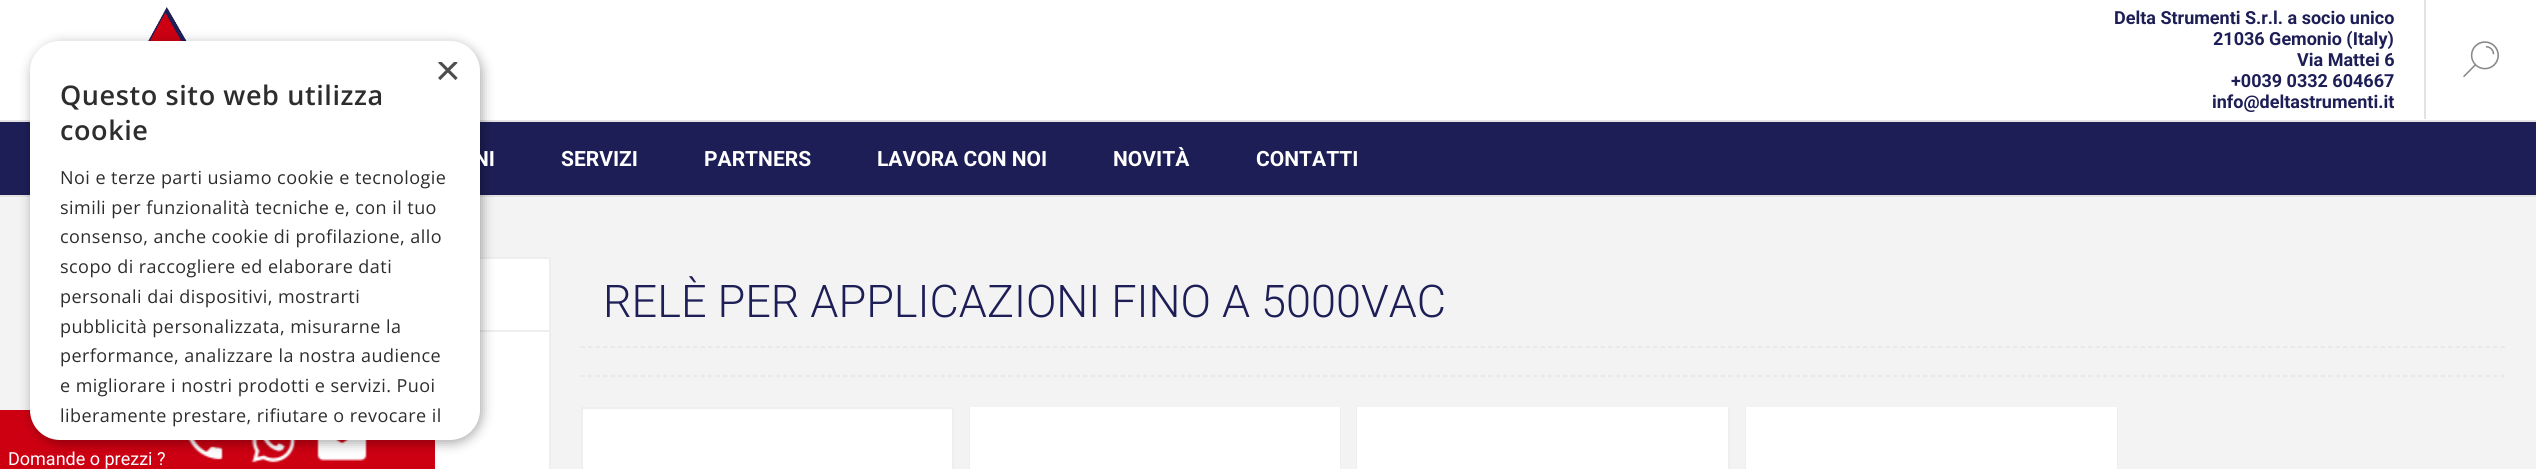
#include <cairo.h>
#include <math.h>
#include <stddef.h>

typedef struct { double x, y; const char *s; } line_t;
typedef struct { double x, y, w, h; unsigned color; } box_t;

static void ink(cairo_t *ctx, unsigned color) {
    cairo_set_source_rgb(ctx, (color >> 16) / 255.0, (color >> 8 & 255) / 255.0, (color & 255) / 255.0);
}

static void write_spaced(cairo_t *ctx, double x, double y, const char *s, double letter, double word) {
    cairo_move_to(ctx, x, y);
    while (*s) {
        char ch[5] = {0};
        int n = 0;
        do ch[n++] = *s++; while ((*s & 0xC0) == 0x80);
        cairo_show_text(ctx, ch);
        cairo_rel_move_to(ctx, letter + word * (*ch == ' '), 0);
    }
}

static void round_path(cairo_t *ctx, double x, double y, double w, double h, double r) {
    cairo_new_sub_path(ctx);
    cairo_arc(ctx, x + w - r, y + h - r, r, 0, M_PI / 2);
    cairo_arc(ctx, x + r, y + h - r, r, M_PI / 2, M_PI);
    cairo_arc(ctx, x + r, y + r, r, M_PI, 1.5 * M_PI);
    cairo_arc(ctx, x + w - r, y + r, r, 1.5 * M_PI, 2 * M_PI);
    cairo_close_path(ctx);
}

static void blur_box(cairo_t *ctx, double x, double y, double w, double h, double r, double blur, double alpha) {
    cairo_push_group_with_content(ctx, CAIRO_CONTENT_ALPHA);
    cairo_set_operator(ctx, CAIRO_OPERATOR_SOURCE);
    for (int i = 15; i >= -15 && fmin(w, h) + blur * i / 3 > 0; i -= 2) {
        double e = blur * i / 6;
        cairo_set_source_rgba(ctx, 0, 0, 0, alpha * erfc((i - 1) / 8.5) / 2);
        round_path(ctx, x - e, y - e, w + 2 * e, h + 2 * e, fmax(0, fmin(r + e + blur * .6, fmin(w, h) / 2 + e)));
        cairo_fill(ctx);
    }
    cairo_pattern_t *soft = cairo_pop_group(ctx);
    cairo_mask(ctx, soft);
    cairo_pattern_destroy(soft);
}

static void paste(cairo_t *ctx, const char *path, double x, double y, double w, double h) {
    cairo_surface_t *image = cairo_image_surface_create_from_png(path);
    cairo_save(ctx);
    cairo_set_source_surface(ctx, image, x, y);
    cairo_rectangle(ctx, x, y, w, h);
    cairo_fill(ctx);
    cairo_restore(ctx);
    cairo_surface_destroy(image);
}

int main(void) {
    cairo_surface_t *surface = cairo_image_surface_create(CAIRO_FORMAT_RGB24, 2536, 469);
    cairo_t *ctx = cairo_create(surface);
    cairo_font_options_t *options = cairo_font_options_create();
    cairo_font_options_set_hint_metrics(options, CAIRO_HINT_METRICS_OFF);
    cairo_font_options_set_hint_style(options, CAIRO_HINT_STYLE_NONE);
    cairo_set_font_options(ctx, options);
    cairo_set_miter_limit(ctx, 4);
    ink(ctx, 0xF3F3F3);
    cairo_paint(ctx);
    ink(ctx, 0xFFFFFF);
    cairo_rectangle(ctx, 0, 0, 2536, 120);
    cairo_fill(ctx);
    ink(ctx, 0xE3E3E3);
    cairo_rectangle(ctx, 0, 120, 2536, 2);
    cairo_fill(ctx);
    paste(ctx, "media/1.png", 148, 7, 39, 34);
    {
        static const box_t items[] = {
            {0, 122, 2536, 73, 0x1D1E56},
            {0, 195, 2536, 2, 0xE3E3E3},
            {435, 259, 114, 210, 0xFFFFFF},
            {480, 257, 71, 2, 0xEEEEEE},
            {480, 330, 69, 2, 0xEEEEEE},
            {0, 410, 435, 59, 0xCD0012},
        };
        for (size_t i = 0; i < sizeof items / sizeof *items; i++) {
            ink(ctx, items[i].color);
            cairo_rectangle(ctx, items[i].x, items[i].y, items[i].w, items[i].h);
            cairo_fill(ctx);
        }
    }
    paste(ctx, "media/3.png", 188, 440, 35, 20);
    paste(ctx, "media/4.png", 251, 440, 45, 23);
    paste(ctx, "media/5.png", 317, 440, 50, 21);
    ink(ctx, 0x000000);
    blur_box(ctx, 32, 44, 450, 399, 30, 6, 0.35);
    ink(ctx, 0xFFFFFF);
    round_path(ctx, 30, 41, 450, 399, 30);
    cairo_fill(ctx);
    cairo_save(ctx);
    cairo_rectangle(ctx, 435, 62, 23, 22);
    cairo_clip(ctx);
    cairo_select_font_face(ctx, "Liberation Sans", CAIRO_FONT_SLANT_NORMAL, CAIRO_FONT_WEIGHT_NORMAL);
    cairo_set_font_size(ctx, 44);
    ink(ctx, 0x4D4D4D);
    cairo_move_to(ctx, 435, 85);
    cairo_show_text(ctx, "×");
    cairo_restore(ctx);
    cairo_select_font_face(ctx, "Open Sans SemiBold", CAIRO_FONT_SLANT_NORMAL, CAIRO_FONT_WEIGHT_NORMAL);
    cairo_set_font_size(ctx, 27);
    ink(ctx, 0x2D2D2D);
    write_spaced(ctx, 60, 105, "Questo sito web utilizza", 0.6, 0);
    write_spaced(ctx, 60, 140, "cookie", 0.6, 0);
    cairo_select_font_face(ctx, "Open Sans", CAIRO_FONT_SLANT_NORMAL, CAIRO_FONT_WEIGHT_NORMAL);
    cairo_set_font_size(ctx, 18);
    {
        static const line_t items[] = {
            {60, 184, "Noi e terze parti usiamo cookie e tecnologie"},
            {60, 214, "simili per funzionalità tecniche e, con il tuo"},
            {60, 243, "consenso, anche cookie di profilazione, allo"},
            {60, 273, "scopo di raccogliere ed elaborare dati"},
            {60, 303, "personali dai dispositivi, mostrarti"},
            {60, 333, "pubblicità personalizzata, misurarne la"},
            {60, 362, "performance, analizzare la nostra audience"},
            {60, 392, "e migliorare i nostri prodotti e servizi. Puoi"},
            {60, 422, "liberamente prestare, rifiutare o revocare il"},
        };
        for (size_t i = 0; i < sizeof items / sizeof *items; i++) {
            write_spaced(ctx, items[i].x, items[i].y, items[i].s, 0.45, 0);
        }
    }
    cairo_select_font_face(ctx, "Roboto", CAIRO_FONT_SLANT_NORMAL, CAIRO_FONT_WEIGHT_BOLD);
    ink(ctx, 0x1D1E56);
    {
        static const line_t items[] = {
            {2114, 24, "Delta Strumenti S.r.l. a socio unico"},
            {2213, 45, "21036 Gemonio (Italy)"},
            {2297, 66, "Via Mattei 6"},
            {2231, 87, "+0039 0332 604667"},
            {2212, 108, "info@deltastrumenti.it"},
        };
        for (size_t i = 0; i < sizeof items / sizeof *items; i++) {
            cairo_move_to(ctx, items[i].x, items[i].y);
            cairo_show_text(ctx, items[i].s);
        }
    }
    ink(ctx, 0xE3E3E3);
    cairo_rectangle(ctx, 2424, 0, 2, 119);
    cairo_fill(ctx);
    paste(ctx, "media/2.png", 2463, 41, 36, 37);
    cairo_set_font_size(ctx, 21);
    ink(ctx, 0xFFFFFF);
    {
        static const line_t items[] = {
            {474, 166, "NI"},
            {561, 166, "SERVIZI"},
            {704, 166, "PARTNERS"},
            {877, 166, "LAVORA CON NOI"},
            {1113, 166, "NOVITÀ"},
            {1256, 166, "CONTATTI"},
        };
        for (size_t i = 0; i < sizeof items / sizeof *items; i++) {
            cairo_move_to(ctx, items[i].x, items[i].y);
            cairo_show_text(ctx, items[i].s);
        }
    }
    ink(ctx, 0xEEEEEE);
    cairo_rectangle(ctx, 549, 257, 2, 212);
    cairo_fill(ctx);
    cairo_new_path(ctx);
    cairo_move_to(ctx, 580.5, 347);
    cairo_line_to(ctx, 2506.5, 347);
    ink(ctx, 0xE6E6E6);
    cairo_set_line_width(ctx, 1.5);
    cairo_set_dash(ctx, (double[]){4.5, 3}, 2, 0);
    cairo_stroke(ctx);
    cairo_select_font_face(ctx, "Roboto Light", CAIRO_FONT_SLANT_NORMAL, CAIRO_FONT_WEIGHT_NORMAL);
    cairo_set_font_size(ctx, 45);
    ink(ctx, 0x1D1E56);
    cairo_move_to(ctx, 603, 317);
    cairo_show_text(ctx, "RELÈ PER APPLICAZIONI FINO A 5000VAC");
    cairo_new_path(ctx);
    cairo_move_to(ctx, 580.5, 376);
    cairo_line_to(ctx, 2506.5, 376);
    ink(ctx, 0xE6E6E6);
    cairo_stroke(ctx);
    ink(ctx, 0xFFFFFF);
    cairo_rectangle(ctx, 582, 408, 371, 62);
    cairo_fill_preserve(ctx);
    ink(ctx, 0xEEEEEE);
    cairo_set_line_width(ctx, 2);
    cairo_set_dash(ctx, NULL, 0, 0);
    cairo_stroke(ctx);
    cairo_rectangle(ctx, 970, 408, 370, 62);
    cairo_stroke(ctx);
    ink(ctx, 0xFFFFFF);
    cairo_rectangle(ctx, 970, 407, 370, 62);
    cairo_fill(ctx);
    cairo_rectangle(ctx, 1357, 408, 372, 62);
    ink(ctx, 0xEEEEEE);
    cairo_stroke(ctx);
    ink(ctx, 0xFFFFFF);
    cairo_rectangle(ctx, 1357, 407, 371, 62);
    cairo_fill(ctx);
    cairo_rectangle(ctx, 1746, 408, 371, 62);
    ink(ctx, 0xEEEEEE);
    cairo_stroke(ctx);
    ink(ctx, 0xFFFFFF);
    cairo_rectangle(ctx, 1746, 407, 371, 62);
    cairo_fill(ctx);
    cairo_select_font_face(ctx, "Roboto", CAIRO_FONT_SLANT_NORMAL, CAIRO_FONT_WEIGHT_NORMAL);
    cairo_set_font_size(ctx, 18);
    cairo_move_to(ctx, 8, 465);
    cairo_show_text(ctx, "Domande o prezzi ?");
    cairo_surface_write_to_png(surface, "image.png");
    cairo_font_options_destroy(options);
    cairo_destroy(ctx);
    cairo_surface_destroy(surface);
    return 0;
}
